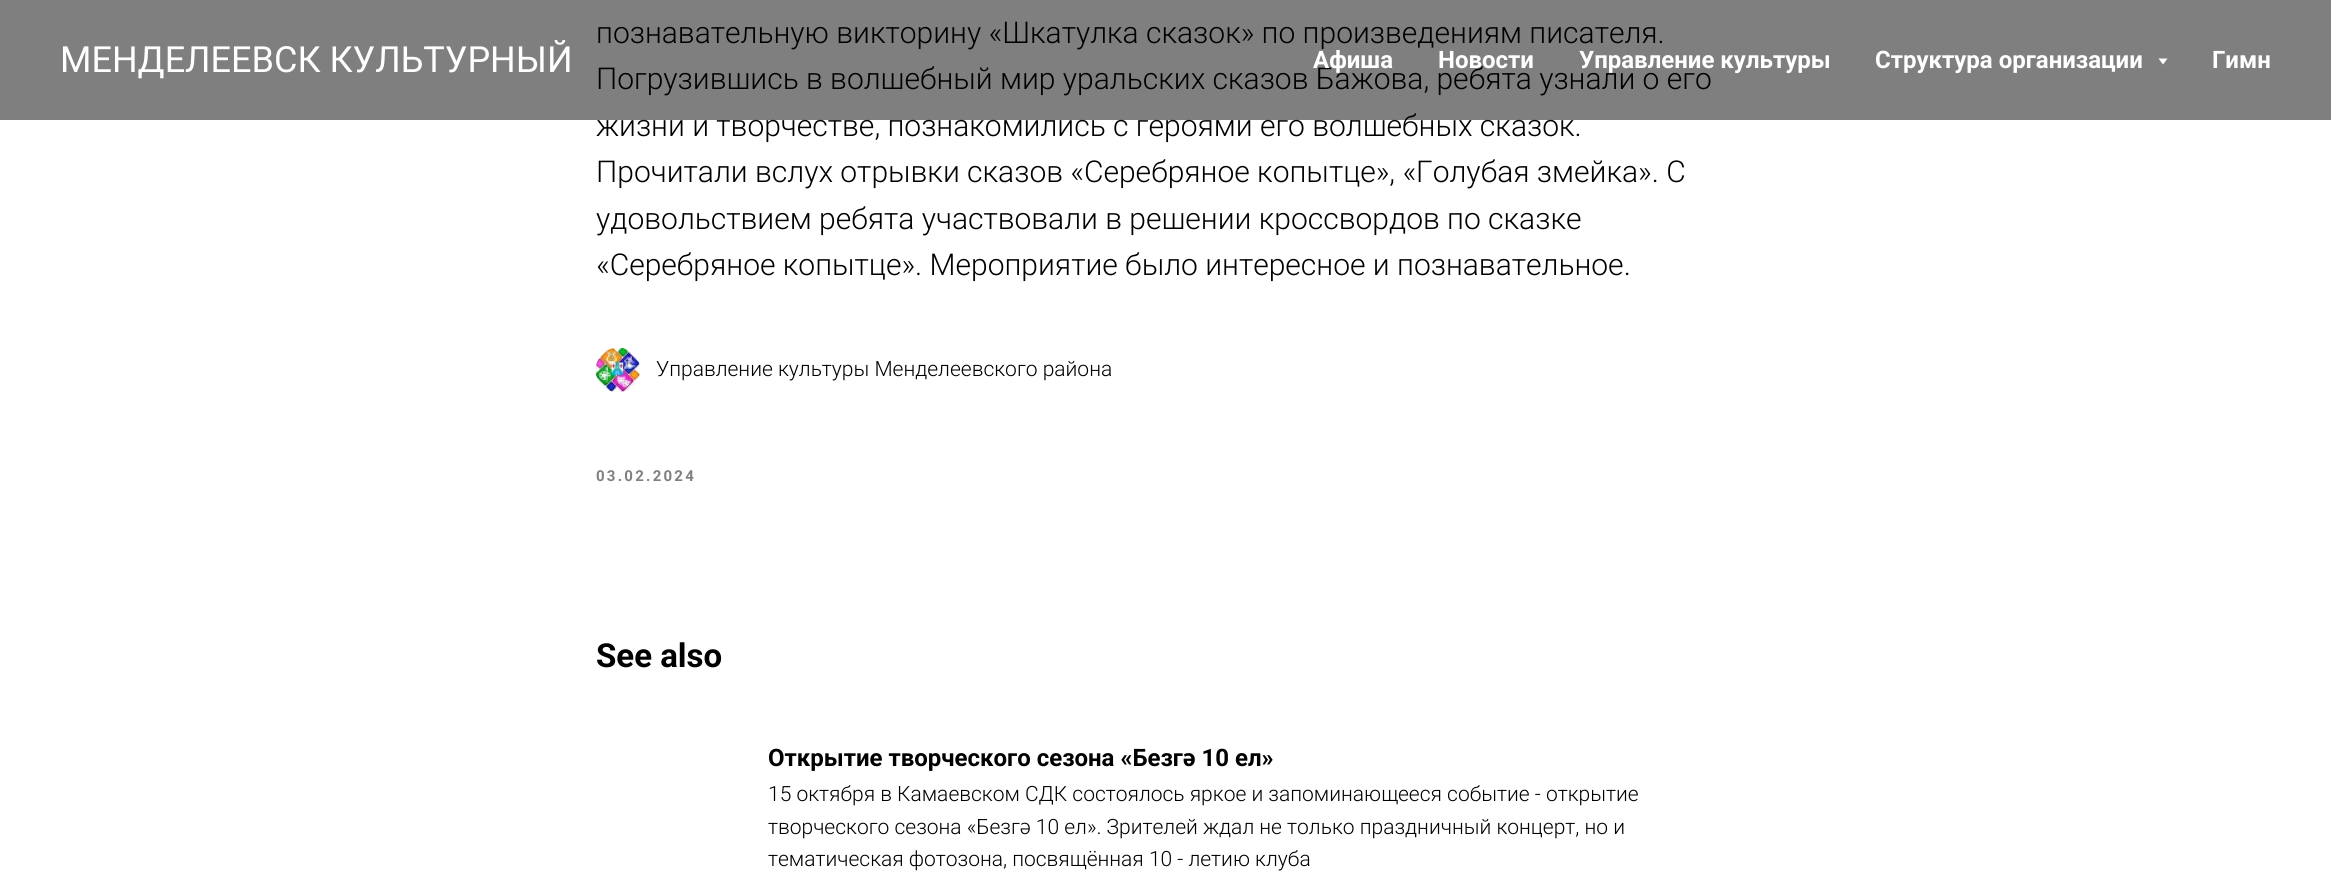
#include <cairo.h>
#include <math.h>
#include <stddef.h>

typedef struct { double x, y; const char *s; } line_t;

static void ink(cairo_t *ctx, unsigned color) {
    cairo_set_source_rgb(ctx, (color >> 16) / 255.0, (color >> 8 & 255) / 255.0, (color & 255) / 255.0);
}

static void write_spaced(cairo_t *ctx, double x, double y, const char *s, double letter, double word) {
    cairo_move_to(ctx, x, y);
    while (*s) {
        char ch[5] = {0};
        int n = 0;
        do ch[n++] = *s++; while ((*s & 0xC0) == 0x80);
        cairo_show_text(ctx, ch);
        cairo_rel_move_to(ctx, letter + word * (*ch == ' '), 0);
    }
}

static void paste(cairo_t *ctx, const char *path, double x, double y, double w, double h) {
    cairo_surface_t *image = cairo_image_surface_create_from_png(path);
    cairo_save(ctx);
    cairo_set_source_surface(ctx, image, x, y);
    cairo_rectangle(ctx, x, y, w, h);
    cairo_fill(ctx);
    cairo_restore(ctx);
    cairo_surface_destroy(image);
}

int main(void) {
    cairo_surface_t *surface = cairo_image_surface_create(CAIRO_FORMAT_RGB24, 2331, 871);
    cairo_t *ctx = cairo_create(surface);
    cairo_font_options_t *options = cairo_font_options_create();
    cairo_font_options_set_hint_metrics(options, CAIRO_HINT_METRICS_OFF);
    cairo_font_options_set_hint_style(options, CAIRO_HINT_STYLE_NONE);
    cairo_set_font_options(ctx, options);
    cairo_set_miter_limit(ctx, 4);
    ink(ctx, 0xFFFFFF);
    cairo_paint(ctx);
    cairo_select_font_face(ctx, "Roboto Light", CAIRO_FONT_SLANT_NORMAL, CAIRO_FONT_WEIGHT_NORMAL);
    cairo_set_font_size(ctx, 30);
    ink(ctx, 0x000000);
    {
        static const line_t items[] = {
            {596, 43, "познавательную викторину «Шкатулка сказок» по произведениям писателя."},
            {596, 89, "Погрузившись в волшебный мир уральских сказов Бажова, ребята узнали о его"},
            {596, 136, "жизни и творчестве, познакомились с героями его волшебных сказок."},
            {596, 182, "Прочитали вслух отрывки сказов «Серебряное копытце», «Голубая змейка». С"},
            {596, 229, "удовольствием ребята участвовали в решении кроссвордов по сказке"},
            {596, 275, "«Серебряное копытце». Мероприятие было интересное и познавательное."},
        };
        for (size_t i = 0; i < sizeof items / sizeof *items; i++) {
            cairo_move_to(ctx, items[i].x, items[i].y);
            cairo_show_text(ctx, items[i].s);
        }
    }
    paste(ctx, "media/1.png", 595, 347, 46, 45);
    cairo_set_font_size(ctx, 21);
    cairo_move_to(ctx, 656, 376);
    cairo_show_text(ctx, "Управление культуры Менделеевского района");
    cairo_select_font_face(ctx, "Roboto", CAIRO_FONT_SLANT_NORMAL, CAIRO_FONT_WEIGHT_BOLD);
    cairo_set_font_size(ctx, 15);
    ink(ctx, 0x808080);
    write_spaced(ctx, 596, 481, "03.02.2024", 2.25, 0);
    cairo_set_font_size(ctx, 33);
    ink(ctx, 0x000000);
    cairo_move_to(ctx, 596, 667);
    cairo_show_text(ctx, "See also");
    cairo_set_font_size(ctx, 24);
    cairo_move_to(ctx, 768, 766);
    cairo_show_text(ctx, "Открытие творческого сезона «Безгә 10 ел»");
    cairo_select_font_face(ctx, "Roboto Light", CAIRO_FONT_SLANT_NORMAL, CAIRO_FONT_WEIGHT_NORMAL);
    cairo_set_font_size(ctx, 21);
    {
        static const line_t items[] = {
            {768, 801, "15 октября в Камаевском СДК состоялось яркое и запоминающееся событие - открытие"},
            {768, 834, "творческого сезона «Безгә 10 ел». Зрителей ждал не только праздничный концерт, но и"},
            {768, 866, "тематическая фотозона, посвящённая 10 - летию клуба"},
        };
        for (size_t i = 0; i < sizeof items / sizeof *items; i++) {
            cairo_move_to(ctx, items[i].x, items[i].y);
            cairo_show_text(ctx, items[i].s);
        }
    }
    cairo_set_source_rgba(ctx, 0, 0, 0, 0.5);
    cairo_rectangle(ctx, 0, 0, 2331, 120);
    cairo_fill(ctx);
    cairo_select_font_face(ctx, "Roboto", CAIRO_FONT_SLANT_NORMAL, CAIRO_FONT_WEIGHT_NORMAL);
    cairo_set_font_size(ctx, 36);
    ink(ctx, 0xFFFFFF);
    cairo_move_to(ctx, 60, 72);
    cairo_show_text(ctx, "МЕНДЕЛЕЕВСК КУЛЬТУРНЫЙ");
    cairo_select_font_face(ctx, "Roboto", CAIRO_FONT_SLANT_NORMAL, CAIRO_FONT_WEIGHT_BOLD);
    cairo_set_font_size(ctx, 24);
    {
        static const line_t items[] = {
            {1313, 68, "Афиша"},
            {1438, 68, "Новости"},
            {1579, 68, "Управление культуры"},
            {1875, 68, "Структура организации"},
        };
        for (size_t i = 0; i < sizeof items / sizeof *items; i++) {
            cairo_move_to(ctx, items[i].x, items[i].y);
            cairo_show_text(ctx, items[i].s);
        }
    }
    cairo_new_path(ctx);
    cairo_move_to(ctx, 2158.5, 58.5);
    cairo_line_to(ctx, 2167.5, 58.5);
    cairo_line_to(ctx, 2163, 64.5);
    cairo_close_path(ctx);
    cairo_fill(ctx);
    cairo_move_to(ctx, 2212, 68);
    cairo_show_text(ctx, "Гимн");
    cairo_surface_write_to_png(surface, "image.png");
    cairo_font_options_destroy(options);
    cairo_destroy(ctx);
    cairo_surface_destroy(surface);
    return 0;
}
